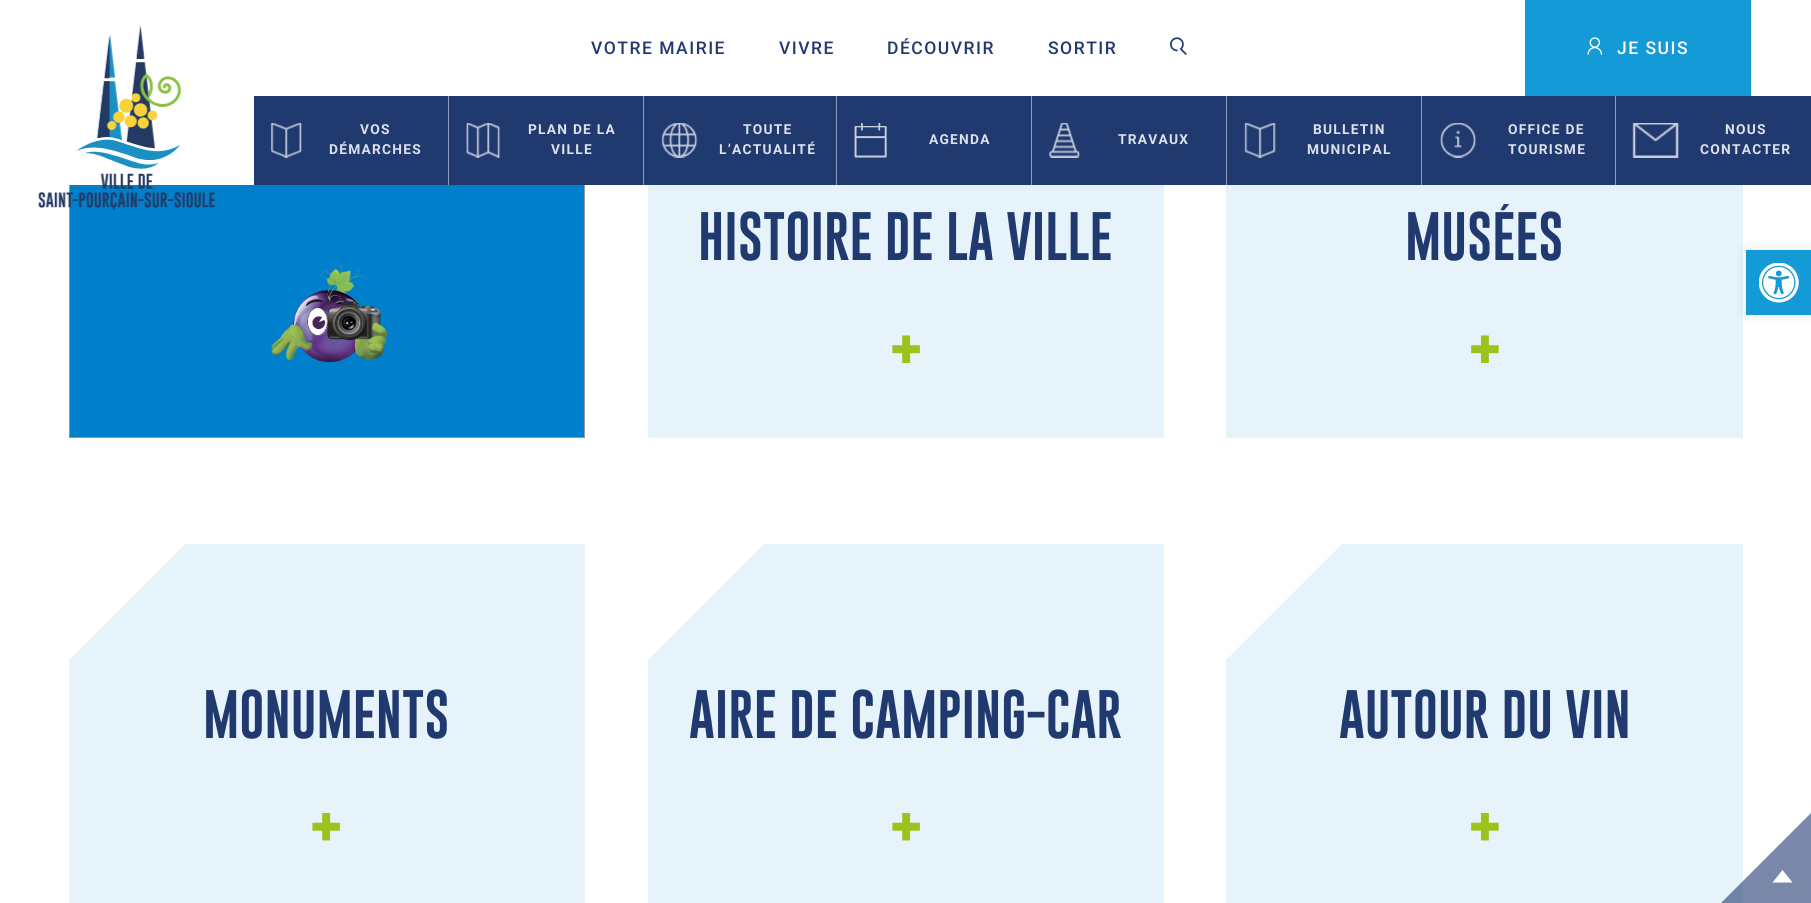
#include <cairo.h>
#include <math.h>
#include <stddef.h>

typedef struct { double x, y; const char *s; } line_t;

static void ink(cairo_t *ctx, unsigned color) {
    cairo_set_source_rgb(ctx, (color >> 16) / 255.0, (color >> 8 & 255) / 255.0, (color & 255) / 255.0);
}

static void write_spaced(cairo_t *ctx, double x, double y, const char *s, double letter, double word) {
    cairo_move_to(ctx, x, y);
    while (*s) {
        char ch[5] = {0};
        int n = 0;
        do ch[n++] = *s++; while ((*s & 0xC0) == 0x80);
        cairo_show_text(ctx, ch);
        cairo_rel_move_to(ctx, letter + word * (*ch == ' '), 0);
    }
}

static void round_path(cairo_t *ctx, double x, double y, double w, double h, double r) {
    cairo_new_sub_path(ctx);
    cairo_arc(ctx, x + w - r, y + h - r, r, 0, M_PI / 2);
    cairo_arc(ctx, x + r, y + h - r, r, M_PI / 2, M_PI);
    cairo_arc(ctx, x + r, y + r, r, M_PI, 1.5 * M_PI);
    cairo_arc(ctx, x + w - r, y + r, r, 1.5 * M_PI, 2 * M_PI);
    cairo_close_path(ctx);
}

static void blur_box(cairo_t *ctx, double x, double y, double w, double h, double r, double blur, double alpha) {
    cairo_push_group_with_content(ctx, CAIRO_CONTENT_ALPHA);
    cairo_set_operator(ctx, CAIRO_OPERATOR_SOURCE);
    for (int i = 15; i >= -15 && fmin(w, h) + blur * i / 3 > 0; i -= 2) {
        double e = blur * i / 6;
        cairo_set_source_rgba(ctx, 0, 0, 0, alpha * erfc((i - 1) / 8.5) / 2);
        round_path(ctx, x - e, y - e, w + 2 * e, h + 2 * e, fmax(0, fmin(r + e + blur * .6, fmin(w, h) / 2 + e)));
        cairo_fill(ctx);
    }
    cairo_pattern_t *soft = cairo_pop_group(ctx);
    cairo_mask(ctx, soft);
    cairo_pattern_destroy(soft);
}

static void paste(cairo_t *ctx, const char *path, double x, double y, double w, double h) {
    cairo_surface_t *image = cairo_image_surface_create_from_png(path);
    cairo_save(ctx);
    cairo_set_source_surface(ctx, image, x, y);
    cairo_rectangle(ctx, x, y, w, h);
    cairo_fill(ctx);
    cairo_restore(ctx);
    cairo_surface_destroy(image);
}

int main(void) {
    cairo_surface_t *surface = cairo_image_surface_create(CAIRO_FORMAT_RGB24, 1811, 903);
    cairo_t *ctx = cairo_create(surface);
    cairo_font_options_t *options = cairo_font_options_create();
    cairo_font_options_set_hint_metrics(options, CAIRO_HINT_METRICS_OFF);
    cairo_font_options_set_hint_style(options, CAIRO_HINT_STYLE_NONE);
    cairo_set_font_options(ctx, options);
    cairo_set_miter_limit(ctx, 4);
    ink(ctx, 0xFFFFFF);
    cairo_paint(ctx);
    ink(ctx, 0x0080CC);
    cairo_rectangle(ctx, 70, 185, 514, 252);
    cairo_fill(ctx);
    cairo_rectangle(ctx, 69.5, 66.5, 515, 371);
    ink(ctx, 0x979797);
    cairo_set_line_width(ctx, 1);
    cairo_stroke(ctx);
    ink(ctx, 0xFFFFFF);
    cairo_rectangle(ctx, 69, 66, 516, 119);
    cairo_fill(ctx);
    paste(ctx, "media/1.png", 38, 25, 177, 185);
    cairo_select_font_face(ctx, "Roboto Medium", CAIRO_FONT_SLANT_NORMAL, CAIRO_FONT_WEIGHT_NORMAL);
    cairo_set_font_size(ctx, 17.5);
    ink(ctx, 0x203A70);
    {
        static const line_t items[] = {
            {591, 54, "VOTRE MAIRIE"},
            {779, 54, "VIVRE"},
            {887, 54, "DÉCOUVRIR"},
            {1048, 54, "SORTIR"},
        };
        for (size_t i = 0; i < sizeof items / sizeof *items; i++) {
            write_spaced(ctx, items[i].x, items[i].y, items[i].s, 1.5, 0);
        }
    }
    paste(ctx, "media/2.png", 1170, 37, 17, 18);
    ink(ctx, 0x149AD7);
    cairo_rectangle(ctx, 1525, 0, 226, 96);
    cairo_fill(ctx);
    paste(ctx, "media/3.png", 1587, 37, 16, 18);
    ink(ctx, 0xFFFFFF);
    write_spaced(ctx, 1617, 54, "JE SUIS", 1.5, 0);
    ink(ctx, 0x203A70);
    cairo_rectangle(ctx, 254, 96, 1557, 89);
    cairo_fill(ctx);
    ink(ctx, 0x909DB8);
    cairo_rectangle(ctx, 448, 96, 1, 89);
    cairo_fill(ctx);
    paste(ctx, "media/4.png", 271, 123, 31, 35);
    cairo_select_font_face(ctx, "Roboto", CAIRO_FONT_SLANT_NORMAL, CAIRO_FONT_WEIGHT_BOLD);
    cairo_set_font_size(ctx, 13.75);
    ink(ctx, 0xDEE1EA);
    write_spaced(ctx, 360, 134, "VOS", 1.25, 0);
    write_spaced(ctx, 329, 154, "DÉMARCHES", 1.25, 0);
    ink(ctx, 0x909DB8);
    cairo_rectangle(ctx, 643, 96, 1, 89);
    cairo_fill(ctx);
    paste(ctx, "media/5.png", 466, 123, 35, 35);
    ink(ctx, 0xDEE1EA);
    write_spaced(ctx, 528, 134, "PLAN DE LA", 1.25, 0);
    write_spaced(ctx, 551, 154, "VILLE", 1.25, 0);
    ink(ctx, 0x909DB8);
    cairo_rectangle(ctx, 836, 96, 1, 89);
    cairo_fill(ctx);
    paste(ctx, "media/6.png", 661, 123, 37, 35);
    ink(ctx, 0xDEE1EA);
    write_spaced(ctx, 743, 134, "TOUTE", 1.25, 0);
    write_spaced(ctx, 719, 154, "L’ACTUALITÉ", 1.25, 0);
    ink(ctx, 0x909DB8);
    cairo_rectangle(ctx, 1031, 96, 1, 89);
    cairo_fill(ctx);
    paste(ctx, "media/7.png", 854, 123, 33, 35);
    ink(ctx, 0xDEE1EA);
    write_spaced(ctx, 929, 144, "AGENDA", 1.25, 0);
    ink(ctx, 0x909DB8);
    cairo_rectangle(ctx, 1226, 96, 1, 89);
    cairo_fill(ctx);
    paste(ctx, "media/8.png", 1049, 123, 31, 35);
    ink(ctx, 0xDEE1EA);
    write_spaced(ctx, 1118, 144, "TRAVAUX", 1.25, 0);
    ink(ctx, 0x909DB8);
    cairo_rectangle(ctx, 1421, 96, 1, 89);
    cairo_fill(ctx);
    paste(ctx, "media/9.png", 1244, 123, 32, 35);
    ink(ctx, 0xDEE1EA);
    write_spaced(ctx, 1313, 134, "BULLETIN", 1.25, 0);
    write_spaced(ctx, 1307, 154, "MUNICIPAL", 1.25, 0);
    ink(ctx, 0x909DB8);
    cairo_rectangle(ctx, 1615, 96, 1, 89);
    cairo_fill(ctx);
    paste(ctx, "media/10.png", 1440, 123, 36, 35);
    ink(ctx, 0xDEE1EA);
    write_spaced(ctx, 1508, 134, "OFFICE DE", 1.25, 0);
    write_spaced(ctx, 1508, 154, "TOURISME", 1.25, 0);
    paste(ctx, "media/11.png", 1632, 123, 47, 35);
    write_spaced(ctx, 1725, 134, "NOUS", 1.25, 0);
    write_spaced(ctx, 1700, 154, "CONTACTER", 1.25, 0);
    paste(ctx, "media/12.png", 271, 261, 117, 102);
    ink(ctx, 0xE6F3FA);
    cairo_rectangle(ctx, 648, 185, 516, 253);
    cairo_fill(ctx);
    cairo_select_font_face(ctx, "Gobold", CAIRO_FONT_SLANT_NORMAL, CAIRO_FONT_WEIGHT_BOLD);
    cairo_set_font_size(ctx, 50);
    ink(ctx, 0x203A70);
    cairo_move_to(ctx, 698, 260);
    cairo_show_text(ctx, "HISTOIRE DE LA VILLE");
    paste(ctx, "media/13.png", 892, 335, 28, 28);
    ink(ctx, 0xE6F3FA);
    cairo_rectangle(ctx, 1226, 185, 517, 253);
    cairo_fill(ctx);
    ink(ctx, 0x203A70);
    cairo_move_to(ctx, 1405, 260);
    cairo_show_text(ctx, "MUSÉES");
    paste(ctx, "media/14.png", 1471, 335, 28, 28);
    ink(ctx, 0xE6F3FA);
    cairo_rectangle(ctx, 69, 544, 516, 359);
    cairo_fill(ctx);
    ink(ctx, 0xFFFFFF);
    cairo_new_path(ctx);
    cairo_move_to(ctx, 69, 544);
    cairo_line_to(ctx, 185, 544);
    cairo_line_to(ctx, 69, 660);
    cairo_close_path(ctx);
    cairo_fill(ctx);
    ink(ctx, 0x203A70);
    cairo_move_to(ctx, 203, 738);
    cairo_show_text(ctx, "MONUMENTS");
    paste(ctx, "media/15.png", 312, 812, 28, 29);
    ink(ctx, 0xE6F3FA);
    cairo_rectangle(ctx, 648, 544, 516, 359);
    cairo_fill(ctx);
    ink(ctx, 0xFFFFFF);
    cairo_new_path(ctx);
    cairo_move_to(ctx, 648, 544);
    cairo_line_to(ctx, 764, 544);
    cairo_line_to(ctx, 648, 660);
    cairo_close_path(ctx);
    cairo_fill(ctx);
    ink(ctx, 0x203A70);
    cairo_move_to(ctx, 689, 738);
    cairo_show_text(ctx, "AIRE DE CAMPING-CAR");
    paste(ctx, "media/15.png", 892, 812, 28, 29);
    ink(ctx, 0xE6F3FA);
    cairo_rectangle(ctx, 1226, 544, 517, 359);
    cairo_fill(ctx);
    ink(ctx, 0xFFFFFF);
    cairo_new_path(ctx);
    cairo_move_to(ctx, 1226, 544);
    cairo_line_to(ctx, 1342, 544);
    cairo_line_to(ctx, 1226, 660);
    cairo_close_path(ctx);
    cairo_fill(ctx);
    ink(ctx, 0x203A70);
    cairo_move_to(ctx, 1339, 738);
    cairo_show_text(ctx, "AUTOUR DU VIN");
    paste(ctx, "media/16.png", 1471, 812, 28, 29);
    ink(ctx, 0x000000);
    blur_box(ctx, 1746, 250, 65, 65, 0, 6, 0.1);
    ink(ctx, 0x149AD7);
    cairo_rectangle(ctx, 1746, 250, 65, 65);
    cairo_fill(ctx);
    paste(ctx, "media/17.png", 1759, 263, 40, 40);
    cairo_set_source_rgba(ctx, 0.125, 0.227, 0.439, 0.6);
    cairo_new_path(ctx);
    cairo_move_to(ctx, 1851, 773);
    cairo_line_to(ctx, 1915, 838);
    cairo_line_to(ctx, 1773, 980);
    cairo_line_to(ctx, 1709, 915);
    cairo_close_path(ctx);
    cairo_fill(ctx);
    ink(ctx, 0xFFFFFF);
    cairo_new_path(ctx);
    cairo_move_to(ctx, 1792.5, 882.5);
    cairo_line_to(ctx, 1772.5, 882.5);
    cairo_line_to(ctx, 1782.5, 870);
    cairo_close_path(ctx);
    cairo_fill(ctx);
    cairo_surface_write_to_png(surface, "image.png");
    cairo_font_options_destroy(options);
    cairo_destroy(ctx);
    cairo_surface_destroy(surface);
    return 0;
}
